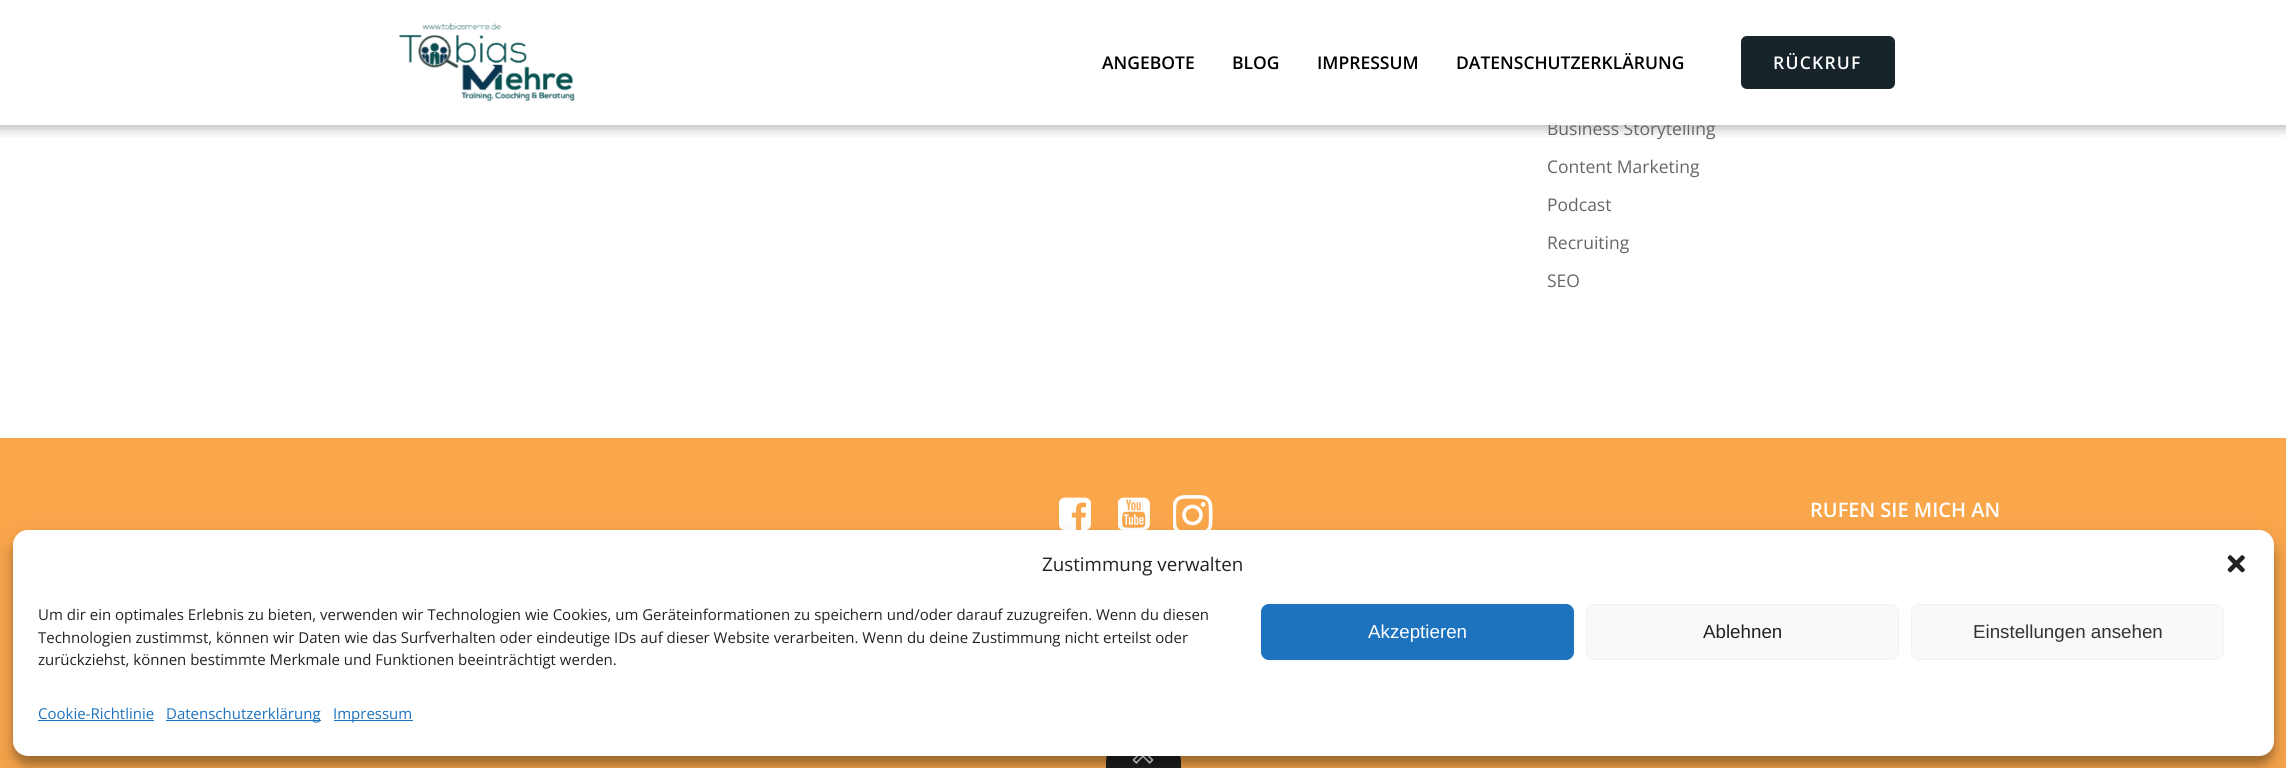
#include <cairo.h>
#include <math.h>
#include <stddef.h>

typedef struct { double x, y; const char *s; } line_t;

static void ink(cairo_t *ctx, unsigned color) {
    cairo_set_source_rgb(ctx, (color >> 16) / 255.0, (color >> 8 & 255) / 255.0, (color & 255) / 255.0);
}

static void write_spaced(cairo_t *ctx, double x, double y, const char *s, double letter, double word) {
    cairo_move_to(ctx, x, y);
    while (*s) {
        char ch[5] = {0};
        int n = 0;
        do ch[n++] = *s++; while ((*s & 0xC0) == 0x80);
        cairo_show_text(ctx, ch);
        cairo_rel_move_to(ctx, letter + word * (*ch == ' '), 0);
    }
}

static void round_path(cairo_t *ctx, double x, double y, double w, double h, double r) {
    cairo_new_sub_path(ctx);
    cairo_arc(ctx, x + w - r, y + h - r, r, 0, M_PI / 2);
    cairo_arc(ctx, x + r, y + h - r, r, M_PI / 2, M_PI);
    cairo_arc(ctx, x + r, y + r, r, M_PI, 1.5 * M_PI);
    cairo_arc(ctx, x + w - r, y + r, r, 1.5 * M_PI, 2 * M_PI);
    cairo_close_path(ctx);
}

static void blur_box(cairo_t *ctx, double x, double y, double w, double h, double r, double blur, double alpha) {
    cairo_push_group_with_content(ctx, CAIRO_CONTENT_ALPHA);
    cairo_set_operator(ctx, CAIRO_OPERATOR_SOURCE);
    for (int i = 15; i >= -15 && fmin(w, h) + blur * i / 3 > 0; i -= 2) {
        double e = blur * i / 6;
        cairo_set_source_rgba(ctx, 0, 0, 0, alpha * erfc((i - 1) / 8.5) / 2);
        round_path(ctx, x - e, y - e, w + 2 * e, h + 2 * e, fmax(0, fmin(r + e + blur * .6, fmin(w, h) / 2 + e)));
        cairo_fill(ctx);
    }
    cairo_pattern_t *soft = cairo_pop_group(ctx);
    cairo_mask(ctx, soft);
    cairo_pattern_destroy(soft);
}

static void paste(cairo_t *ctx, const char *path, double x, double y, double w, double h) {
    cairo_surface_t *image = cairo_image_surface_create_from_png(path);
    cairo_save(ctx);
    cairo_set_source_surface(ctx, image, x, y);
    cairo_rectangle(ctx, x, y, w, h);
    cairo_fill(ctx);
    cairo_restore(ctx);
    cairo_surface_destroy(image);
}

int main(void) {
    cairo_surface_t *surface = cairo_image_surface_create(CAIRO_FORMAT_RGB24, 2286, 768);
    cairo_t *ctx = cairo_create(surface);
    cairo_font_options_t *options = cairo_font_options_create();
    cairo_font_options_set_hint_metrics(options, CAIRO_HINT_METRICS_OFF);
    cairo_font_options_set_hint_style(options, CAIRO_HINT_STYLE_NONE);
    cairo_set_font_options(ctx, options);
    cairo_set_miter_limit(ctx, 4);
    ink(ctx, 0xFFFFFF);
    cairo_paint(ctx);
    cairo_save(ctx);
    cairo_rectangle(ctx, 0, 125, 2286, 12);
    cairo_clip(ctx);
    ink(ctx, 0x000000);
    blur_box(ctx, -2, -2, 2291, 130, 0, 6, 0.3);
    cairo_restore(ctx);
    cairo_select_font_face(ctx, "Open Sans", CAIRO_FONT_SLANT_NORMAL, CAIRO_FONT_WEIGHT_NORMAL);
    cairo_set_font_size(ctx, 17.5);
    ink(ctx, 0x666666);
    cairo_move_to(ctx, 1547, 135);
    cairo_show_text(ctx, "Business Storytelling");
    cairo_set_source_rgba(ctx, 1, 1, 1, 0.9);
    cairo_rectangle(ctx, 1548, 121, 146, 4);
    cairo_fill(ctx);
    paste(ctx, "media/1.png", 399, 23, 176, 79);
    cairo_select_font_face(ctx, "Open Sans SemiBold", CAIRO_FONT_SLANT_NORMAL, CAIRO_FONT_WEIGHT_NORMAL);
    ink(ctx, 0x000000);
    {
        static const line_t items[] = {
            {1102, 69, "ANGEBOTE"},
            {1232, 69, "BLOG"},
            {1317, 69, "IMPRESSUM"},
            {1456, 69, "DATENSCHUTZERKLÄRUNG"},
        };
        for (size_t i = 0; i < sizeof items / sizeof *items; i++) {
            cairo_move_to(ctx, items[i].x, items[i].y);
            cairo_show_text(ctx, items[i].s);
        }
    }
    ink(ctx, 0x17252A);
    round_path(ctx, 1742.5, 37.5, 151, 50, 4.5);
    cairo_fill_preserve(ctx);
    cairo_set_line_width(ctx, 3);
    cairo_stroke(ctx);
    ink(ctx, 0xFFFFFF);
    write_spaced(ctx, 1773, 69, "RÜCKRUF", 1.25, 0);
    cairo_select_font_face(ctx, "Open Sans", CAIRO_FONT_SLANT_NORMAL, CAIRO_FONT_WEIGHT_NORMAL);
    ink(ctx, 0x666666);
    {
        static const line_t items[] = {
            {1547, 173, "Content Marketing"},
            {1547, 211, "Podcast"},
            {1547, 249, "Recruiting"},
            {1547, 287, "SEO"},
        };
        for (size_t i = 0; i < sizeof items / sizeof *items; i++) {
            cairo_move_to(ctx, items[i].x, items[i].y);
            cairo_show_text(ctx, items[i].s);
        }
    }
    ink(ctx, 0xFAA64B);
    cairo_rectangle(ctx, 0, 438, 2286, 330);
    cairo_fill(ctx);
    paste(ctx, "media/2.png", 1059, 497, 32, 33);
    paste(ctx, "media/3.png", 1118, 497, 32, 33);
    paste(ctx, "media/4.png", 1173, 495, 40, 35);
    cairo_select_font_face(ctx, "Open Sans SemiBold", CAIRO_FONT_SLANT_NORMAL, CAIRO_FONT_WEIGHT_NORMAL);
    cairo_set_font_size(ctx, 20);
    ink(ctx, 0xFFFFFF);
    cairo_move_to(ctx, 1810, 517);
    cairo_show_text(ctx, "RUFEN SIE MICH AN");
    ink(ctx, 0x1F1F1F);
    cairo_new_path(ctx);
    cairo_move_to(ctx, 1143.5, 725);
    cairo_curve_to(ctx, 1164, 725, 1181, 742, 1181, 762.5);
    cairo_line_to(ctx, 1181, 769);
    cairo_line_to(ctx, 1106, 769);
    cairo_line_to(ctx, 1106, 762.5);
    cairo_curve_to(ctx, 1106, 742, 1123, 725, 1143.5, 725);
    cairo_close_path(ctx);
    cairo_fill(ctx);
    paste(ctx, "media/5.png", 1132, 756, 22, 8);
    ink(ctx, 0x000000);
    blur_box(ctx, 13, 538, 2261, 226, 15, 4, 0.23);
    blur_box(ctx, 13, 543, 2261, 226, 15, 12.5, 0.19);
    ink(ctx, 0xFFFFFF);
    round_path(ctx, 13, 530, 2261, 226, 15);
    cairo_fill(ctx);
    cairo_select_font_face(ctx, "Open Sans", CAIRO_FONT_SLANT_NORMAL, CAIRO_FONT_WEIGHT_NORMAL);
    cairo_set_font_size(ctx, 18.75);
    ink(ctx, 0x222222);
    cairo_move_to(ctx, 1042, 571);
    cairo_show_text(ctx, "Zustimmung verwalten");
    paste(ctx, "media/6.png", 2227, 555, 18, 18);
    cairo_set_font_size(ctx, 15);
    {
        static const line_t items[] = {
            {38, 620, "Um dir ein optimales Erlebnis zu bieten, verwenden wir Technologien wie Cookies, um Geräteinformationen zu speichern und/oder darauf zuzugreifen. Wenn du diesen"},
            {38, 643, "Technologien zustimmst, können wir Daten wie das Surfverhalten oder eindeutige IDs auf dieser Website verarbeiten. Wenn du deine Zustimmung nicht erteilst oder"},
            {38, 665, "zurückziehst, können bestimmte Merkmale und Funktionen beeinträchtigt werden."},
        };
        for (size_t i = 0; i < sizeof items / sizeof *items; i++) {
            cairo_move_to(ctx, items[i].x, items[i].y);
            cairo_show_text(ctx, items[i].s);
        }
    }
    ink(ctx, 0x1E73BE);
    round_path(ctx, 1261.5, 604.5, 312, 55, 7.5);
    cairo_fill_preserve(ctx);
    cairo_set_line_width(ctx, 1);
    cairo_stroke(ctx);
    cairo_select_font_face(ctx, "Liberation Sans", CAIRO_FONT_SLANT_NORMAL, CAIRO_FONT_WEIGHT_NORMAL);
    cairo_set_font_size(ctx, 18.75);
    ink(ctx, 0xFFFFFF);
    cairo_move_to(ctx, 1368, 638);
    cairo_show_text(ctx, "Akzeptieren");
    ink(ctx, 0xF9F9F9);
    round_path(ctx, 1586.5, 604.5, 312, 55, 7.5);
    cairo_fill_preserve(ctx);
    ink(ctx, 0xF2F2F2);
    cairo_stroke(ctx);
    ink(ctx, 0x222222);
    cairo_move_to(ctx, 1703, 638);
    cairo_show_text(ctx, "Ablehnen");
    ink(ctx, 0xF9F9F9);
    round_path(ctx, 1911.5, 604.5, 312, 55, 7.5);
    cairo_fill_preserve(ctx);
    ink(ctx, 0xF2F2F2);
    cairo_stroke(ctx);
    ink(ctx, 0x333333);
    cairo_move_to(ctx, 1973, 638);
    cairo_show_text(ctx, "Einstellungen ansehen");
    cairo_select_font_face(ctx, "Open Sans", CAIRO_FONT_SLANT_NORMAL, CAIRO_FONT_WEIGHT_NORMAL);
    cairo_set_font_size(ctx, 15);
    ink(ctx, 0x1E73BE);
    cairo_move_to(ctx, 38, 719);
    cairo_show_text(ctx, "Cookie-Richtlinie");
    cairo_rectangle(ctx, 38, 720, 116, 1);
    cairo_fill(ctx);
    cairo_rectangle(ctx, 166, 720, 155, 1);
    cairo_fill(ctx);
    cairo_move_to(ctx, 166, 719);
    cairo_show_text(ctx, "Datenschutzerklärung");
    cairo_rectangle(ctx, 334, 720, 79, 1);
    cairo_fill(ctx);
    cairo_move_to(ctx, 333, 719);
    cairo_show_text(ctx, "Impressum");
    cairo_surface_write_to_png(surface, "image.png");
    cairo_font_options_destroy(options);
    cairo_destroy(ctx);
    cairo_surface_destroy(surface);
    return 0;
}
